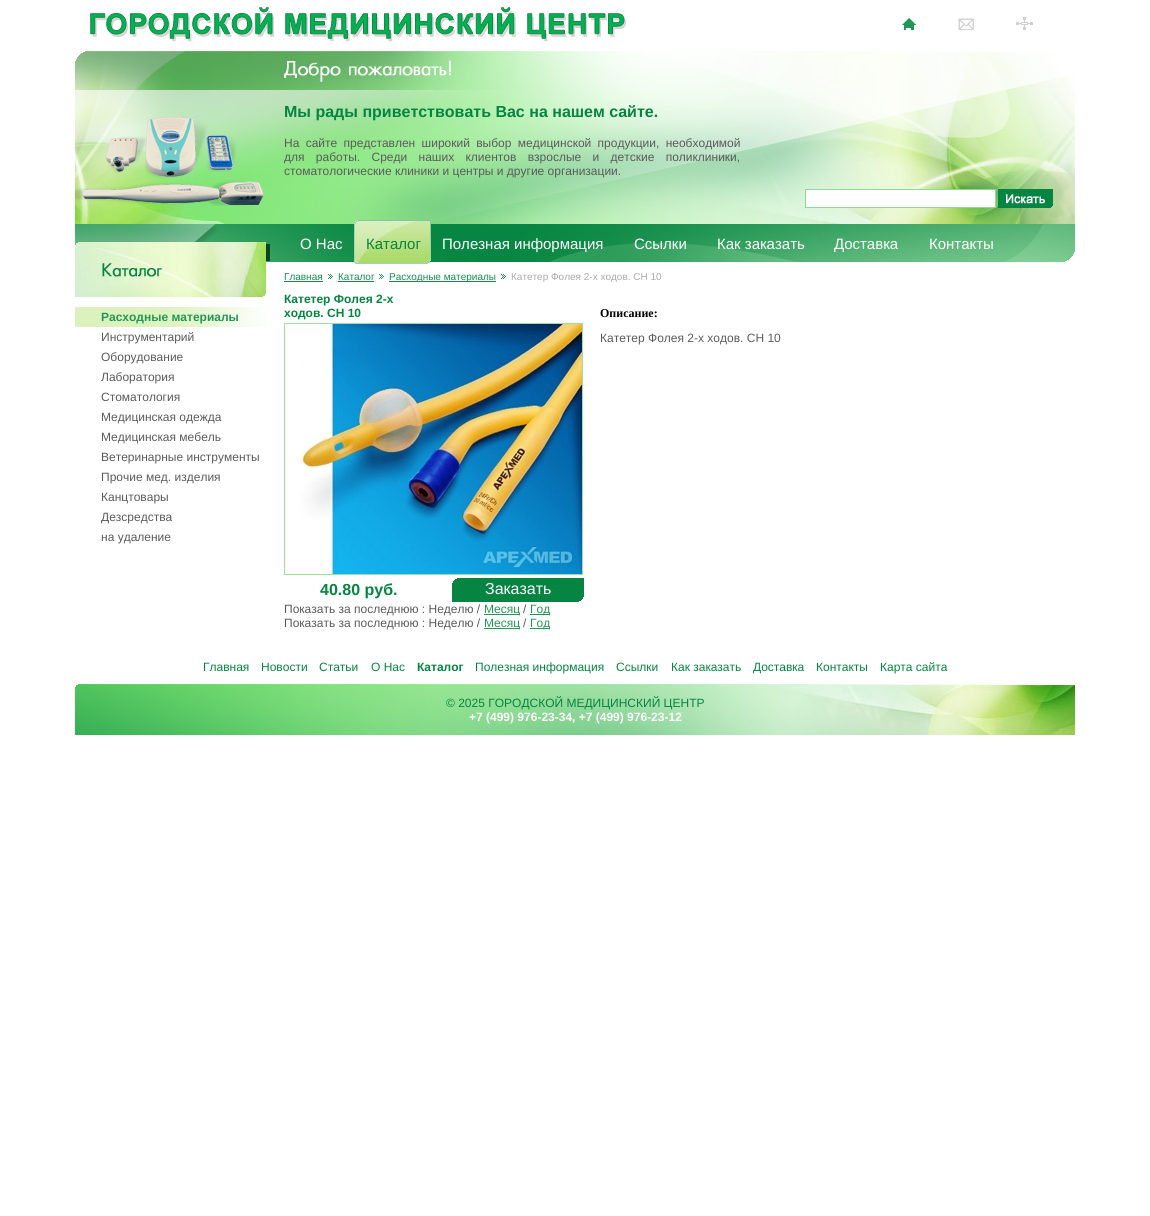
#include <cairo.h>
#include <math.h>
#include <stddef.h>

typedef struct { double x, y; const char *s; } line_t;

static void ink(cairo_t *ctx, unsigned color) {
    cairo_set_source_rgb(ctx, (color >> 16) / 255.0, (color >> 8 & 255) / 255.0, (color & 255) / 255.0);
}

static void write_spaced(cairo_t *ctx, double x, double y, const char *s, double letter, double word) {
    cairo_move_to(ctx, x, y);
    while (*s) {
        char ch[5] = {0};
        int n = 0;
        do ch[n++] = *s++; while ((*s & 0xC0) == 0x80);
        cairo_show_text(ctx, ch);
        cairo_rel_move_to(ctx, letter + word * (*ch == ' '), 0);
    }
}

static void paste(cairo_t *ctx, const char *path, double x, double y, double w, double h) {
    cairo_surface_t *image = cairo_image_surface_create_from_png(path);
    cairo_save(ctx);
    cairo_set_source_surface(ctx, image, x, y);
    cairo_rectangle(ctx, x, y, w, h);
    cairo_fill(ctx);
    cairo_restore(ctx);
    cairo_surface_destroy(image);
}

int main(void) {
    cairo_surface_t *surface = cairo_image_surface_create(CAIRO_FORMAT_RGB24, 1150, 1216);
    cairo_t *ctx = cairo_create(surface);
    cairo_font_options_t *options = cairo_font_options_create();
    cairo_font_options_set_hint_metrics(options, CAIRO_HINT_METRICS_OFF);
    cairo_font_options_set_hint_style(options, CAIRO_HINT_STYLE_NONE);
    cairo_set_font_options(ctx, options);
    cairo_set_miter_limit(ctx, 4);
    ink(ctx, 0xFFFFFF);
    cairo_paint(ctx);
    paste(ctx, "media/1.png", 83, 0, 544, 47);
    paste(ctx, "media/2.png", 902, 18, 14, 12);
    paste(ctx, "media/3.png", 958, 18, 16, 12);
    paste(ctx, "media/4.png", 1016, 17, 17, 13);
    paste(ctx, "media/5.png", 75, 47, 1000, 177);
    paste(ctx, "media/6.png", 75, 117, 188, 89);
    cairo_select_font_face(ctx, "Liberation Sans", CAIRO_FONT_SLANT_NORMAL, CAIRO_FONT_WEIGHT_BOLD);
    cairo_set_font_size(ctx, 16);
    ink(ctx, 0x058541);
    cairo_move_to(ctx, 284, 117);
    cairo_show_text(ctx, "Мы рады приветствовать Вас на нашем сайте.");
    cairo_select_font_face(ctx, "Liberation Sans", CAIRO_FONT_SLANT_NORMAL, CAIRO_FONT_WEIGHT_NORMAL);
    cairo_set_font_size(ctx, 12);
    ink(ctx, 0x5B5B5B);
    write_spaced(ctx, 284, 147, "На сайте представлен широкий выбор медицинской продукции, необходимой", 0, 3);
    write_spaced(ctx, 284, 161, "для работы. Среди наших клиентов взрослые и детские поликлиники,", 0, 8);
    cairo_move_to(ctx, 284, 175);
    cairo_show_text(ctx, "стоматологические клиники и центры и другие организации.");
    ink(ctx, 0xFFFFFF);
    cairo_rectangle(ctx, 805.5, 189.5, 190, 18);
    cairo_fill_preserve(ctx);
    ink(ctx, 0x91D89B);
    cairo_set_line_width(ctx, 1);
    cairo_stroke(ctx);
    paste(ctx, "media/7.png", 998, 189, 55, 19);
    paste(ctx, "media/8.png", 75, 224, 1000, 38);
    cairo_set_font_size(ctx, 15);
    ink(ctx, 0xFFFFFF);
    cairo_move_to(ctx, 300, 249);
    cairo_show_text(ctx, "О Нас");
    paste(ctx, "media/9.png", 358, 220, 69, 44);
    paste(ctx, "media/10.png", 354, 220, 64, 44);
    paste(ctx, "media/11.png", 427, 220, 4, 44);
    ink(ctx, 0x058541);
    cairo_move_to(ctx, 366, 249);
    cairo_show_text(ctx, "Каталог");
    ink(ctx, 0xFFFFFF);
    {
        static const line_t items[] = {
            {442, 249, "Полезная информация"},
            {634, 249, "Ссылки"},
            {717, 249, "Как заказать"},
            {834, 249, "Доставка"},
            {929, 249, "Контакты"},
        };
        for (size_t i = 0; i < sizeof items / sizeof *items; i++) {
            cairo_move_to(ctx, items[i].x, items[i].y);
            cairo_show_text(ctx, items[i].s);
        }
    }
    paste(ctx, "media/12.png", 75, 262, 191, 35);
    paste(ctx, "media/13.png", 75, 307, 191, 20);
    cairo_select_font_face(ctx, "Liberation Sans", CAIRO_FONT_SLANT_NORMAL, CAIRO_FONT_WEIGHT_BOLD);
    cairo_set_font_size(ctx, 12);
    ink(ctx, 0x249755);
    cairo_move_to(ctx, 101, 321);
    cairo_show_text(ctx, "Расходные материалы");
    cairo_select_font_face(ctx, "Liberation Sans", CAIRO_FONT_SLANT_NORMAL, CAIRO_FONT_WEIGHT_NORMAL);
    ink(ctx, 0x5B5B5B);
    {
        static const line_t items[] = {
            {101, 341, "Инструментарий"},
            {101, 361, "Оборудование"},
            {101, 381, "Лаборатория"},
            {101, 401, "Стоматология"},
            {101, 421, "Медицинская одежда"},
            {101, 441, "Медицинская мебель"},
            {101, 461, "Ветеринарные инструменты"},
            {101, 481, "Прочие мед. изделия"},
            {101, 501, "Канцтовары"},
            {101, 521, "Дезсредства"},
            {101, 541, "на удаление"},
        };
        for (size_t i = 0; i < sizeof items / sizeof *items; i++) {
            cairo_move_to(ctx, items[i].x, items[i].y);
            cairo_show_text(ctx, items[i].s);
        }
    }
    cairo_set_font_size(ctx, 10);
    ink(ctx, 0x148E4B);
    cairo_move_to(ctx, 284, 280);
    cairo_show_text(ctx, "Главная");
    cairo_rectangle(ctx, 284, 281, 39, 1);
    cairo_fill(ctx);
    paste(ctx, "media/14.png", 328, 274, 5, 5);
    cairo_move_to(ctx, 338, 280);
    cairo_show_text(ctx, "Каталог");
    cairo_rectangle(ctx, 338, 281, 36, 1);
    cairo_fill(ctx);
    paste(ctx, "media/14.png", 379, 274, 5, 5);
    cairo_rectangle(ctx, 389, 281, 107, 1);
    cairo_fill(ctx);
    cairo_move_to(ctx, 389, 280);
    cairo_show_text(ctx, "Расходные материалы");
    paste(ctx, "media/14.png", 501, 274, 5, 5);
    ink(ctx, 0xAAAAAA);
    cairo_move_to(ctx, 511, 280);
    cairo_show_text(ctx, "Катетер Фолея 2-х ходов. СН 10");
    cairo_select_font_face(ctx, "Liberation Sans", CAIRO_FONT_SLANT_NORMAL, CAIRO_FONT_WEIGHT_BOLD);
    cairo_set_font_size(ctx, 12);
    ink(ctx, 0x058541);
    cairo_move_to(ctx, 284, 303);
    cairo_show_text(ctx, "Катетер Фолея 2-х");
    cairo_move_to(ctx, 284, 317);
    cairo_show_text(ctx, "ходов. СН 10");
    cairo_rectangle(ctx, 284.5, 323.5, 298, 251);
    ink(ctx, 0x9DDEA5);
    cairo_stroke(ctx);
    paste(ctx, "media/15.png", 300, 324, 282, 250);
    cairo_set_font_size(ctx, 16);
    ink(ctx, 0x058541);
    cairo_move_to(ctx, 320, 595);
    cairo_show_text(ctx, "40.80 руб.");
    paste(ctx, "media/16.png", 452, 578, 132, 24);
    cairo_select_font_face(ctx, "Liberation Sans", CAIRO_FONT_SLANT_NORMAL, CAIRO_FONT_WEIGHT_NORMAL);
    ink(ctx, 0xFFFFFF);
    cairo_move_to(ctx, 485, 594);
    cairo_show_text(ctx, "Заказать");
    cairo_select_font_face(ctx, "Liberation Serif", CAIRO_FONT_SLANT_NORMAL, CAIRO_FONT_WEIGHT_BOLD);
    cairo_set_font_size(ctx, 12);
    ink(ctx, 0x000000);
    cairo_move_to(ctx, 600, 317);
    cairo_show_text(ctx, "Описание:");
    cairo_select_font_face(ctx, "Liberation Sans", CAIRO_FONT_SLANT_NORMAL, CAIRO_FONT_WEIGHT_NORMAL);
    ink(ctx, 0x5B5B5B);
    cairo_move_to(ctx, 600, 342);
    cairo_show_text(ctx, "Катетер Фолея 2-х ходов. СН 10");
    cairo_move_to(ctx, 284, 613);
    cairo_show_text(ctx, "Показать за последнюю : Неделю /");
    ink(ctx, 0x249755);
    cairo_rectangle(ctx, 484, 614, 36, 1);
    cairo_fill(ctx);
    cairo_move_to(ctx, 484, 613);
    cairo_show_text(ctx, "Месяц");
    ink(ctx, 0x5B5B5B);
    cairo_move_to(ctx, 523, 613);
    cairo_show_text(ctx, "/");
    ink(ctx, 0x249755);
    cairo_rectangle(ctx, 530, 614, 20, 1);
    cairo_fill(ctx);
    cairo_move_to(ctx, 530, 613);
    cairo_show_text(ctx, "Год");
    ink(ctx, 0x5B5B5B);
    cairo_move_to(ctx, 284, 627);
    cairo_show_text(ctx, "Показать за последнюю : Неделю /");
    ink(ctx, 0x249755);
    cairo_rectangle(ctx, 484, 628, 36, 1);
    cairo_fill(ctx);
    cairo_move_to(ctx, 484, 627);
    cairo_show_text(ctx, "Месяц");
    ink(ctx, 0x5B5B5B);
    cairo_move_to(ctx, 523, 627);
    cairo_show_text(ctx, "/");
    ink(ctx, 0x249755);
    cairo_rectangle(ctx, 530, 628, 20, 1);
    cairo_fill(ctx);
    cairo_move_to(ctx, 530, 627);
    cairo_show_text(ctx, "Год");
    ink(ctx, 0x058541);
    {
        static const line_t items[] = {
            {203, 671, "Главная"},
            {261, 671, "Новости"},
            {319, 671, "Статьи"},
            {371, 671, "О Нас"},
        };
        for (size_t i = 0; i < sizeof items / sizeof *items; i++) {
            cairo_move_to(ctx, items[i].x, items[i].y);
            cairo_show_text(ctx, items[i].s);
        }
    }
    cairo_select_font_face(ctx, "Liberation Sans", CAIRO_FONT_SLANT_NORMAL, CAIRO_FONT_WEIGHT_BOLD);
    cairo_move_to(ctx, 417, 671);
    cairo_show_text(ctx, "Каталог");
    cairo_select_font_face(ctx, "Liberation Sans", CAIRO_FONT_SLANT_NORMAL, CAIRO_FONT_WEIGHT_NORMAL);
    {
        static const line_t items[] = {
            {475, 671, "Полезная информация"},
            {616, 671, "Ссылки"},
            {671, 671, "Как заказать"},
            {753, 671, "Доставка"},
            {816, 671, "Контакты"},
            {880, 671, "Карта сайта"},
        };
        for (size_t i = 0; i < sizeof items / sizeof *items; i++) {
            cairo_move_to(ctx, items[i].x, items[i].y);
            cairo_show_text(ctx, items[i].s);
        }
    }
    paste(ctx, "media/17.png", 75, 684, 1000, 51);
    cairo_move_to(ctx, 446, 707);
    cairo_show_text(ctx, "© 2025 ГОРОДСКОЙ МЕДИЦИНСКИЙ ЦЕНТР");
    cairo_select_font_face(ctx, "Liberation Sans", CAIRO_FONT_SLANT_NORMAL, CAIRO_FONT_WEIGHT_BOLD);
    ink(ctx, 0xFFFFFF);
    cairo_move_to(ctx, 469, 721);
    cairo_show_text(ctx, "+7 (499) 976-23-34, +7 (499) 976-23-12");
    cairo_surface_write_to_png(surface, "image.png");
    cairo_font_options_destroy(options);
    cairo_destroy(ctx);
    cairo_surface_destroy(surface);
    return 0;
}
